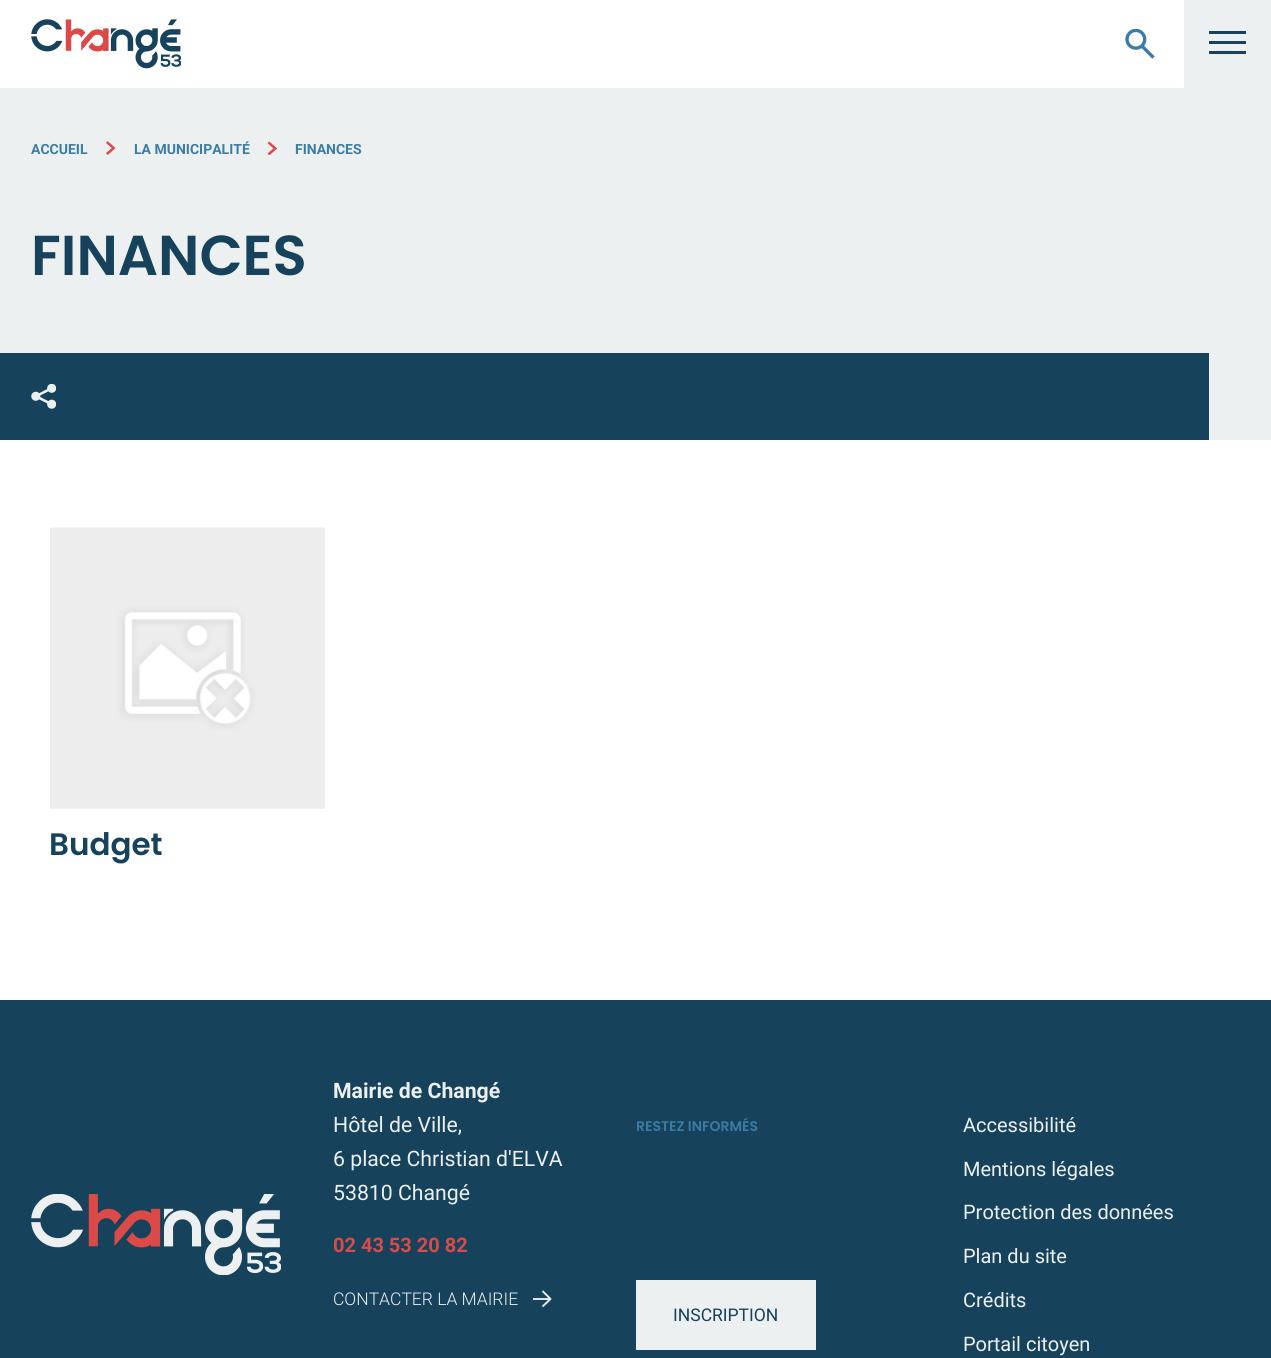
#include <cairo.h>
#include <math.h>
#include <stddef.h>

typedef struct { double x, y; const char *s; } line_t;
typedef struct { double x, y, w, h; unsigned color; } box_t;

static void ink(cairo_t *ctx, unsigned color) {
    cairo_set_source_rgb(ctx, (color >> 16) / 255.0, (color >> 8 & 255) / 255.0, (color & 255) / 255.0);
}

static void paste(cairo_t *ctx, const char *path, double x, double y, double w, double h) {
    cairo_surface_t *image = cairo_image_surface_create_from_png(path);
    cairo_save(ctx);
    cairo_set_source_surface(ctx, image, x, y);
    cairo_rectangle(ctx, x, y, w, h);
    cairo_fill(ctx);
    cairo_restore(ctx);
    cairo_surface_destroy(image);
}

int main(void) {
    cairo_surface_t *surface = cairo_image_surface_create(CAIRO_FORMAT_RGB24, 1271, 1358);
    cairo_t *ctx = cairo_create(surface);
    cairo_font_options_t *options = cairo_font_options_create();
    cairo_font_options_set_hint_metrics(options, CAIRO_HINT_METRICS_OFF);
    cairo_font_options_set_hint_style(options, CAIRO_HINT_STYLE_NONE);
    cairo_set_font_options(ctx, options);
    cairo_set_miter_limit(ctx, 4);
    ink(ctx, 0xFFFFFF);
    cairo_paint(ctx);
    paste(ctx, "media/1.png", 31, 19, 150, 50);
    paste(ctx, "media/2.png", 1125, 29, 30, 30);
    {
        static const box_t items[] = {
            {1184, 0, 87, 88, 0xECF0F1},
            {1209, 41, 37, 3, 0x16425B},
            {1209, 31, 37, 3, 0x16425B},
            {1209, 51, 37, 3, 0x16425B},
            {0, 88, 1271, 352, 0xECF0F1},
        };
        for (size_t i = 0; i < sizeof items / sizeof *items; i++) {
            ink(ctx, items[i].color);
            cairo_rectangle(ctx, items[i].x, items[i].y, items[i].w, items[i].h);
            cairo_fill(ctx);
        }
    }
    cairo_select_font_face(ctx, "Roboto", CAIRO_FONT_SLANT_NORMAL, CAIRO_FONT_WEIGHT_BOLD);
    cairo_set_font_size(ctx, 14);
    ink(ctx, 0x3A7CA5);
    cairo_move_to(ctx, 31, 154);
    cairo_show_text(ctx, "ACCUEIL");
    paste(ctx, "media/3.png", 106, 141, 10, 14);
    cairo_move_to(ctx, 134, 154);
    cairo_show_text(ctx, "LA MUNICIPALITÉ");
    paste(ctx, "media/4.png", 267, 141, 11, 14);
    cairo_move_to(ctx, 295, 154);
    cairo_show_text(ctx, "FINANCES");
    cairo_select_font_face(ctx, "Poppins SemiBold", CAIRO_FONT_SLANT_NORMAL, CAIRO_FONT_WEIGHT_NORMAL);
    cairo_set_font_size(ctx, 56.25);
    ink(ctx, 0x16425B);
    cairo_move_to(ctx, 31, 275);
    cairo_show_text(ctx, "FINANCES");
    cairo_rectangle(ctx, 0, 353, 1209, 87);
    cairo_fill(ctx);
    paste(ctx, "media/5.png", 31, 384, 25, 25);
    paste(ctx, "media/6.png", 50, 527, 275, 282);
    cairo_set_font_size(ctx, 31);
    cairo_move_to(ctx, 49, 855);
    cairo_show_text(ctx, "Budget");
    cairo_rectangle(ctx, 0, 1000, 1271, 358);
    cairo_fill(ctx);
    paste(ctx, "media/7.png", 31, 1194, 250, 81);
    cairo_select_font_face(ctx, "Roboto", CAIRO_FONT_SLANT_NORMAL, CAIRO_FONT_WEIGHT_BOLD);
    cairo_set_font_size(ctx, 21.25);
    ink(ctx, 0xECF0F1);
    cairo_move_to(ctx, 333, 1098);
    cairo_show_text(ctx, "Mairie de Changé");
    cairo_select_font_face(ctx, "Roboto", CAIRO_FONT_SLANT_NORMAL, CAIRO_FONT_WEIGHT_NORMAL);
    {
        static const line_t items[] = {
            {333, 1132, "Hôtel de Ville,"},
            {333, 1166, "6 place Christian d'ELVA"},
            {333, 1200, "53810 Changé"},
        };
        for (size_t i = 0; i < sizeof items / sizeof *items; i++) {
            cairo_move_to(ctx, items[i].x, items[i].y);
            cairo_show_text(ctx, items[i].s);
        }
    }
    cairo_select_font_face(ctx, "Roboto", CAIRO_FONT_SLANT_NORMAL, CAIRO_FONT_WEIGHT_BOLD);
    cairo_set_font_size(ctx, 20);
    ink(ctx, 0xDB4A48);
    cairo_move_to(ctx, 333, 1252);
    cairo_show_text(ctx, "02 43 53 20 82");
    cairo_select_font_face(ctx, "Roboto Light", CAIRO_FONT_SLANT_NORMAL, CAIRO_FONT_WEIGHT_NORMAL);
    cairo_set_font_size(ctx, 17.5);
    ink(ctx, 0xECF0F1);
    cairo_move_to(ctx, 333, 1305);
    cairo_show_text(ctx, "CONTACTER LA MAIRIE");
    cairo_new_path(ctx);
    cairo_move_to(ctx, 542.5, 1291);
    cairo_line_to(ctx, 550.5, 1299);
    cairo_line_to(ctx, 542.5, 1306.5);
    cairo_move_to(ctx, 533, 1299);
    cairo_line_to(ctx, 550.5, 1299);
    cairo_set_line_width(ctx, 1.9);
    cairo_set_line_join(ctx, CAIRO_LINE_JOIN_ROUND);
    cairo_stroke(ctx);
    cairo_select_font_face(ctx, "Poppins SemiBold", CAIRO_FONT_SLANT_NORMAL, CAIRO_FONT_WEIGHT_NORMAL);
    cairo_set_font_size(ctx, 14);
    ink(ctx, 0x3A7CA5);
    cairo_move_to(ctx, 636, 1131);
    cairo_show_text(ctx, "RESTEZ INFORMÉS");
    ink(ctx, 0xECF0F1);
    cairo_rectangle(ctx, 636, 1280, 180, 70);
    cairo_fill(ctx);
    cairo_select_font_face(ctx, "Roboto", CAIRO_FONT_SLANT_NORMAL, CAIRO_FONT_WEIGHT_NORMAL);
    cairo_set_font_size(ctx, 17.5);
    ink(ctx, 0x16425B);
    cairo_move_to(ctx, 673, 1321);
    cairo_show_text(ctx, "INSCRIPTION");
    cairo_set_font_size(ctx, 20);
    ink(ctx, 0xECF0F1);
    {
        static const line_t items[] = {
            {963, 1132, "Accessibilité"},
            {963, 1176, "Mentions légales"},
            {963, 1219, "Protection des données"},
            {963, 1263, "Plan du site"},
            {963, 1307, "Crédits"},
            {963, 1351, "Portail citoyen"},
        };
        for (size_t i = 0; i < sizeof items / sizeof *items; i++) {
            cairo_move_to(ctx, items[i].x, items[i].y);
            cairo_show_text(ctx, items[i].s);
        }
    }
    cairo_surface_write_to_png(surface, "image.png");
    cairo_font_options_destroy(options);
    cairo_destroy(ctx);
    cairo_surface_destroy(surface);
    return 0;
}
